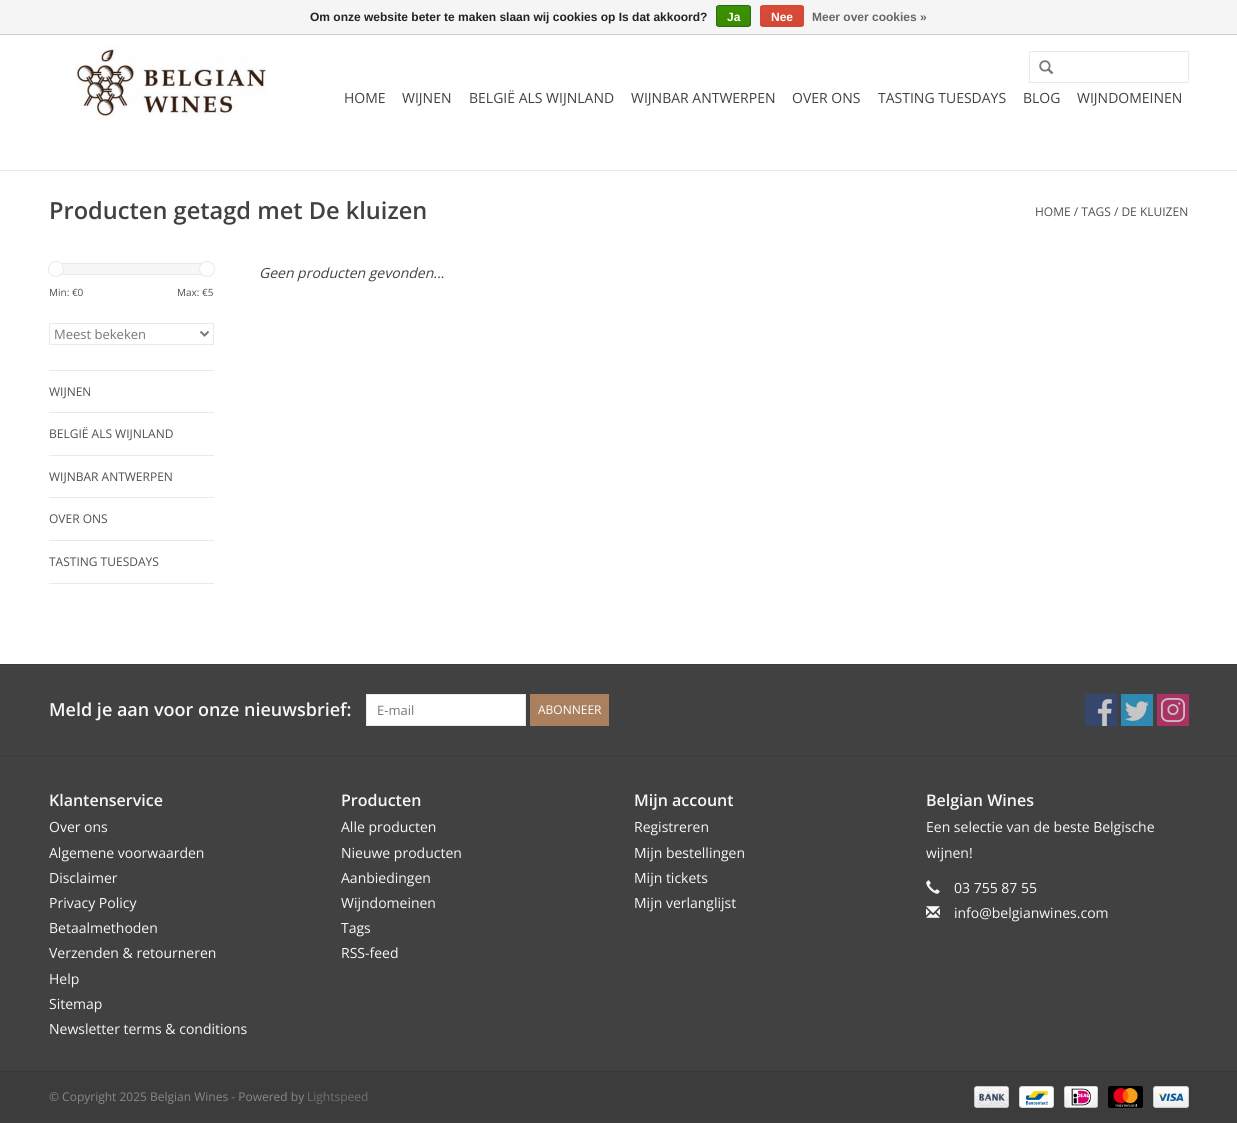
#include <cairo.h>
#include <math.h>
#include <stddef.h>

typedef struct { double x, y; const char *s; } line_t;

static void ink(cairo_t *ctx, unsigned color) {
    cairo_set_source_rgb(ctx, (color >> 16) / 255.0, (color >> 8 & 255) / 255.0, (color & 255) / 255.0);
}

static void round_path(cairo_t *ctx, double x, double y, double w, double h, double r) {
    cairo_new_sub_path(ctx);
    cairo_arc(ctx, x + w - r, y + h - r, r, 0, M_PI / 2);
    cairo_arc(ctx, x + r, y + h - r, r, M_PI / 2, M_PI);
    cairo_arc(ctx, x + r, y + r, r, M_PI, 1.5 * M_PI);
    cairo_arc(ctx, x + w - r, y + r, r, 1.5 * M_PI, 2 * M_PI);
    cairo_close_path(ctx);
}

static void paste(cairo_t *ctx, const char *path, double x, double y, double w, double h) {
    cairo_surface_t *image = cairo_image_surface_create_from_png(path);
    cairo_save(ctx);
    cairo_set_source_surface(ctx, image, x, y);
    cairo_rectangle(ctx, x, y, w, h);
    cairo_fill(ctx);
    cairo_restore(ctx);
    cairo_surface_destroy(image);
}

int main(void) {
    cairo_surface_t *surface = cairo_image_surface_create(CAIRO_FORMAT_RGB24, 1237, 1123);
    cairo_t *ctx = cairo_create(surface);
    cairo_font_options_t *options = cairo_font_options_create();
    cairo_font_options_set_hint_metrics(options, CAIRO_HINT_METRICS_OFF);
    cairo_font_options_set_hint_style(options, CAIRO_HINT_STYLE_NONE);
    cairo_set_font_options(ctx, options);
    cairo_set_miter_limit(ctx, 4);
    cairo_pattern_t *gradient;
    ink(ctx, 0xFFFFFF);
    cairo_paint(ctx);
    ink(ctx, 0xF5F5F5);
    cairo_rectangle(ctx, 0, 0, 1237, 34);
    cairo_fill(ctx);
    ink(ctx, 0xCCCCCC);
    cairo_rectangle(ctx, 0, 34, 1237, 1);
    cairo_fill(ctx);
    cairo_select_font_face(ctx, "Liberation Sans", CAIRO_FONT_SLANT_NORMAL, CAIRO_FONT_WEIGHT_BOLD);
    cairo_set_font_size(ctx, 12);
    ink(ctx, 0x222222);
    cairo_move_to(ctx, 310, 21);
    cairo_show_text(ctx, "Om onze website beter te maken slaan wij cookies op Is dat akkoord?");
    cairo_save(ctx);
    round_path(ctx, 716, 5, 35, 22, 3);
    cairo_clip(ctx);
    gradient = cairo_pattern_create_linear(734, 6, 734, 26);
    cairo_pattern_add_color_stop_rgba(gradient, 0, 0.235, 0.576, 0, 1);
    cairo_pattern_add_color_stop_rgba(gradient, 1, 0.224, 0.541, 0, 1);
    cairo_set_source(ctx, gradient);
    cairo_pattern_destroy(gradient);
    cairo_rectangle(ctx, 716, 6, 35, 20);
    cairo_fill(ctx);
    cairo_restore(ctx);
    round_path(ctx, 716.5, 5.5, 34, 21, 2.5);
    ink(ctx, 0x29691D);
    cairo_set_line_width(ctx, 1);
    cairo_stroke(ctx);
    ink(ctx, 0xFFFFFF);
    cairo_move_to(ctx, 727, 21);
    cairo_show_text(ctx, "Ja");
    cairo_save(ctx);
    round_path(ctx, 760, 5, 44, 22, 3);
    cairo_clip(ctx);
    gradient = cairo_pattern_create_linear(782, 6, 782, 26);
    cairo_pattern_add_color_stop_rgba(gradient, 0, 0.863, 0.29, 0.22, 1);
    cairo_pattern_add_color_stop_rgba(gradient, 1, 0.82, 0.282, 0.212, 1);
    cairo_set_source(ctx, gradient);
    cairo_pattern_destroy(gradient);
    cairo_rectangle(ctx, 760, 6, 44, 20);
    cairo_fill(ctx);
    cairo_restore(ctx);
    round_path(ctx, 760.5, 5.5, 43, 21, 2.5);
    ink(ctx, 0xD14836);
    cairo_stroke(ctx);
    ink(ctx, 0xFFFFFF);
    cairo_move_to(ctx, 771, 21);
    cairo_show_text(ctx, "Nee");
    ink(ctx, 0x666666);
    cairo_move_to(ctx, 812, 21);
    cairo_show_text(ctx, "Meer over cookies »");
    ink(ctx, 0xEAEAEA);
    cairo_rectangle(ctx, 0, 170, 1237, 1);
    cairo_fill(ctx);
    paste(ctx, "media/1.png", 75, 43, 192, 77);
    cairo_rectangle(ctx, 1029.5, 51.5, 159, 31);
    cairo_stroke(ctx);
    paste(ctx, "media/2.png", 1039, 60, 15, 15);
    cairo_select_font_face(ctx, "Open Sans", CAIRO_FONT_SLANT_NORMAL, CAIRO_FONT_WEIGHT_NORMAL);
    cairo_set_font_size(ctx, 14);
    ink(ctx, 0x414141);
    {
        static const line_t items[] = {
            {344, 103, "HOME"},
            {402, 103, "WIJNEN"},
            {469, 103, "BELGIË ALS WIJNLAND"},
            {631, 103, "WIJNBAR ANTWERPEN"},
            {792, 103, "OVER ONS"},
            {878, 103, "TASTING TUESDAYS"},
            {1023, 103, "BLOG"},
            {1077, 103, "WIJNDOMEINEN"},
        };
        for (size_t i = 0; i < sizeof items / sizeof *items; i++) {
            cairo_move_to(ctx, items[i].x, items[i].y);
            cairo_show_text(ctx, items[i].s);
        }
    }
    cairo_select_font_face(ctx, "Open Sans SemiBold", CAIRO_FONT_SLANT_NORMAL, CAIRO_FONT_WEIGHT_NORMAL);
    cairo_set_font_size(ctx, 23.6);
    cairo_move_to(ctx, 49, 219);
    cairo_show_text(ctx, "Producten getagd met De kluizen");
    cairo_select_font_face(ctx, "Open Sans", CAIRO_FONT_SLANT_NORMAL, CAIRO_FONT_WEIGHT_NORMAL);
    cairo_set_font_size(ctx, 12);
    ink(ctx, 0x505050);
    cairo_move_to(ctx, 1035, 216);
    cairo_show_text(ctx, "HOME / TAGS / DE KLUIZEN");
    cairo_select_font_face(ctx, "Open Sans", CAIRO_FONT_SLANT_ITALIC, CAIRO_FONT_WEIGHT_NORMAL);
    cairo_set_font_size(ctx, 14);
    ink(ctx, 0x414141);
    cairo_move_to(ctx, 259, 278);
    cairo_show_text(ctx, "Geen producten gevonden...");
    ink(ctx, 0xEAEAEA);
    cairo_rectangle(ctx, 49, 370, 165, 1);
    cairo_fill(ctx);
    ink(ctx, 0xF7F7F7);
    cairo_rectangle(ctx, 62, 264, 139, 10);
    cairo_fill(ctx);
    cairo_rectangle(ctx, 57.5, 263.5, 150, 11);
    ink(ctx, 0xEAEAEA);
    cairo_stroke(ctx);
    ink(ctx, 0xFEFEFE);
    cairo_arc(ctx, 56, 269, 7.5, 0, 2 * M_PI);
    cairo_fill_preserve(ctx);
    ink(ctx, 0xEAEAEA);
    cairo_stroke(ctx);
    ink(ctx, 0xFEFEFE);
    cairo_arc(ctx, 207, 269, 7.5, 0, 2 * M_PI);
    cairo_fill_preserve(ctx);
    ink(ctx, 0xEAEAEA);
    cairo_stroke(ctx);
    cairo_select_font_face(ctx, "Open Sans", CAIRO_FONT_SLANT_NORMAL, CAIRO_FONT_WEIGHT_NORMAL);
    cairo_set_font_size(ctx, 10);
    ink(ctx, 0x505050);
    cairo_move_to(ctx, 49, 296);
    cairo_show_text(ctx, "Min: €0");
    cairo_move_to(ctx, 177, 296);
    cairo_show_text(ctx, "Max: €5");
    cairo_rectangle(ctx, 49.5, 323.5, 164, 21);
    ink(ctx, 0xEAEAEA);
    cairo_stroke(ctx);
    cairo_new_path(ctx);
    cairo_move_to(ctx, 200.5, 331.5);
    cairo_line_to(ctx, 204.5, 335.5);
    cairo_line_to(ctx, 208.5, 331.5);
    ink(ctx, 0x777777);
    cairo_set_line_width(ctx, 2);
    cairo_stroke(ctx);
    cairo_set_font_size(ctx, 13);
    cairo_move_to(ctx, 54, 339);
    cairo_show_text(ctx, "Meest bekeken");
    ink(ctx, 0xEAEAEA);
    cairo_rectangle(ctx, 49, 412, 165, 1);
    cairo_fill(ctx);
    cairo_set_font_size(ctx, 12);
    ink(ctx, 0x505050);
    cairo_move_to(ctx, 49, 396);
    cairo_show_text(ctx, "WIJNEN");
    ink(ctx, 0xEAEAEA);
    cairo_rectangle(ctx, 49, 455, 165, 1);
    cairo_fill(ctx);
    ink(ctx, 0x505050);
    cairo_move_to(ctx, 49, 438);
    cairo_show_text(ctx, "BELGIË ALS WIJNLAND");
    ink(ctx, 0xEAEAEA);
    cairo_rectangle(ctx, 49, 497, 165, 1);
    cairo_fill(ctx);
    ink(ctx, 0x505050);
    cairo_move_to(ctx, 49, 481);
    cairo_show_text(ctx, "WIJNBAR ANTWERPEN");
    ink(ctx, 0xEAEAEA);
    cairo_rectangle(ctx, 49, 540, 165, 1);
    cairo_fill(ctx);
    ink(ctx, 0x505050);
    cairo_move_to(ctx, 49, 523);
    cairo_show_text(ctx, "OVER ONS");
    ink(ctx, 0xEAEAEA);
    cairo_rectangle(ctx, 49, 583, 165, 1);
    cairo_fill(ctx);
    ink(ctx, 0x505050);
    cairo_move_to(ctx, 49, 566);
    cairo_show_text(ctx, "TASTING TUESDAYS");
    ink(ctx, 0x414141);
    cairo_rectangle(ctx, 0, 665, 1237, 406);
    cairo_fill(ctx);
    ink(ctx, 0x3B3B3B);
    cairo_rectangle(ctx, 0, 664, 1237, 1);
    cairo_fill(ctx);
    cairo_select_font_face(ctx, "Open Sans SemiBold", CAIRO_FONT_SLANT_NORMAL, CAIRO_FONT_WEIGHT_NORMAL);
    cairo_set_font_size(ctx, 18);
    ink(ctx, 0xF7F7F7);
    cairo_move_to(ctx, 49, 716);
    cairo_show_text(ctx, "Meld je aan voor onze nieuwsbrief:");
    ink(ctx, 0xFFFFFF);
    cairo_rectangle(ctx, 366.5, 694.5, 159, 31);
    cairo_fill_preserve(ctx);
    ink(ctx, 0xE9E9E9);
    cairo_set_line_width(ctx, 1);
    cairo_stroke(ctx);
    cairo_select_font_face(ctx, "Open Sans", CAIRO_FONT_SLANT_NORMAL, CAIRO_FONT_WEIGHT_NORMAL);
    cairo_set_font_size(ctx, 13);
    ink(ctx, 0x777777);
    cairo_move_to(ctx, 377, 715);
    cairo_show_text(ctx, "E-mail");
    ink(ctx, 0xAA805F);
    cairo_rectangle(ctx, 530, 694, 79, 32);
    cairo_fill(ctx);
    cairo_set_font_size(ctx, 12);
    ink(ctx, 0xFFFFFF);
    cairo_move_to(ctx, 538, 714);
    cairo_show_text(ctx, "ABONNEER");
    paste(ctx, "media/3.png", 1085, 694, 32, 32);
    paste(ctx, "media/4.png", 1121, 694, 32, 32);
    paste(ctx, "media/5.png", 1157, 694, 32, 32);
    ink(ctx, 0x3B3B3B);
    cairo_rectangle(ctx, 0, 756, 1237, 1);
    cairo_fill(ctx);
    cairo_select_font_face(ctx, "Open Sans SemiBold", CAIRO_FONT_SLANT_NORMAL, CAIRO_FONT_WEIGHT_NORMAL);
    cairo_set_font_size(ctx, 16);
    ink(ctx, 0xF7F7F7);
    cairo_move_to(ctx, 49, 806);
    cairo_show_text(ctx, "Klantenservice");
    cairo_select_font_face(ctx, "Open Sans", CAIRO_FONT_SLANT_NORMAL, CAIRO_FONT_WEIGHT_NORMAL);
    cairo_set_font_size(ctx, 14);
    {
        static const line_t items[] = {
            {49, 832, "Over ons"},
            {49, 858, "Algemene voorwaarden"},
            {49, 883, "Disclaimer"},
            {49, 908, "Privacy Policy"},
            {49, 933, "Betaalmethoden"},
            {49, 958, "Verzenden & retourneren"},
            {49, 984, "Help"},
            {49, 1009, "Sitemap"},
            {49, 1034, "Newsletter terms & conditions"},
        };
        for (size_t i = 0; i < sizeof items / sizeof *items; i++) {
            cairo_move_to(ctx, items[i].x, items[i].y);
            cairo_show_text(ctx, items[i].s);
        }
    }
    cairo_select_font_face(ctx, "Open Sans SemiBold", CAIRO_FONT_SLANT_NORMAL, CAIRO_FONT_WEIGHT_NORMAL);
    cairo_set_font_size(ctx, 16);
    cairo_move_to(ctx, 341, 806);
    cairo_show_text(ctx, "Producten");
    cairo_select_font_face(ctx, "Open Sans", CAIRO_FONT_SLANT_NORMAL, CAIRO_FONT_WEIGHT_NORMAL);
    cairo_set_font_size(ctx, 14);
    {
        static const line_t items[] = {
            {341, 832, "Alle producten"},
            {341, 858, "Nieuwe producten"},
            {341, 883, "Aanbiedingen"},
            {341, 908, "Wijndomeinen"},
            {341, 933, "Tags"},
            {341, 958, "RSS-feed"},
        };
        for (size_t i = 0; i < sizeof items / sizeof *items; i++) {
            cairo_move_to(ctx, items[i].x, items[i].y);
            cairo_show_text(ctx, items[i].s);
        }
    }
    cairo_select_font_face(ctx, "Open Sans SemiBold", CAIRO_FONT_SLANT_NORMAL, CAIRO_FONT_WEIGHT_NORMAL);
    cairo_set_font_size(ctx, 16);
    cairo_move_to(ctx, 634, 806);
    cairo_show_text(ctx, "Mijn account");
    cairo_select_font_face(ctx, "Open Sans", CAIRO_FONT_SLANT_NORMAL, CAIRO_FONT_WEIGHT_NORMAL);
    cairo_set_font_size(ctx, 14);
    {
        static const line_t items[] = {
            {634, 832, "Registreren"},
            {634, 858, "Mijn bestellingen"},
            {634, 883, "Mijn tickets"},
            {634, 908, "Mijn verlanglijst"},
        };
        for (size_t i = 0; i < sizeof items / sizeof *items; i++) {
            cairo_move_to(ctx, items[i].x, items[i].y);
            cairo_show_text(ctx, items[i].s);
        }
    }
    cairo_select_font_face(ctx, "Open Sans SemiBold", CAIRO_FONT_SLANT_NORMAL, CAIRO_FONT_WEIGHT_NORMAL);
    cairo_set_font_size(ctx, 16);
    cairo_move_to(ctx, 926, 806);
    cairo_show_text(ctx, "Belgian Wines");
    cairo_select_font_face(ctx, "Open Sans", CAIRO_FONT_SLANT_NORMAL, CAIRO_FONT_WEIGHT_NORMAL);
    cairo_set_font_size(ctx, 14);
    cairo_move_to(ctx, 926, 832);
    cairo_show_text(ctx, "Een selectie van de beste Belgische");
    cairo_move_to(ctx, 926, 858);
    cairo_show_text(ctx, "wijnen!");
    paste(ctx, "media/6.png", 926, 880, 14, 14);
    cairo_move_to(ctx, 954, 893);
    cairo_show_text(ctx, "03 755 87 55");
    paste(ctx, "media/7.png", 926, 906, 14, 12);
    cairo_move_to(ctx, 954, 918);
    cairo_show_text(ctx, "info@belgianwines.com");
    ink(ctx, 0x373737);
    cairo_rectangle(ctx, 0, 1071, 1237, 1);
    cairo_fill(ctx);
    ink(ctx, 0x3C3C3C);
    cairo_rectangle(ctx, 0, 1072, 1237, 51);
    cairo_fill(ctx);
    cairo_set_font_size(ctx, 12);
    ink(ctx, 0x878787);
    cairo_move_to(ctx, 49, 1101);
    cairo_show_text(ctx, "© Copyright 2025 Belgian Wines - Powered by");
    ink(ctx, 0x707070);
    cairo_move_to(ctx, 307, 1101);
    cairo_show_text(ctx, "Lightspeed");
    paste(ctx, "media/8.png", 974, 1086, 35, 22);
    paste(ctx, "media/9.png", 1019, 1086, 35, 22);
    paste(ctx, "media/10.png", 1064, 1086, 34, 22);
    paste(ctx, "media/11.png", 1108, 1086, 35, 22);
    paste(ctx, "media/12.png", 1153, 1086, 36, 22);
    cairo_surface_write_to_png(surface, "image.png");
    cairo_font_options_destroy(options);
    cairo_destroy(ctx);
    cairo_surface_destroy(surface);
    return 0;
}
